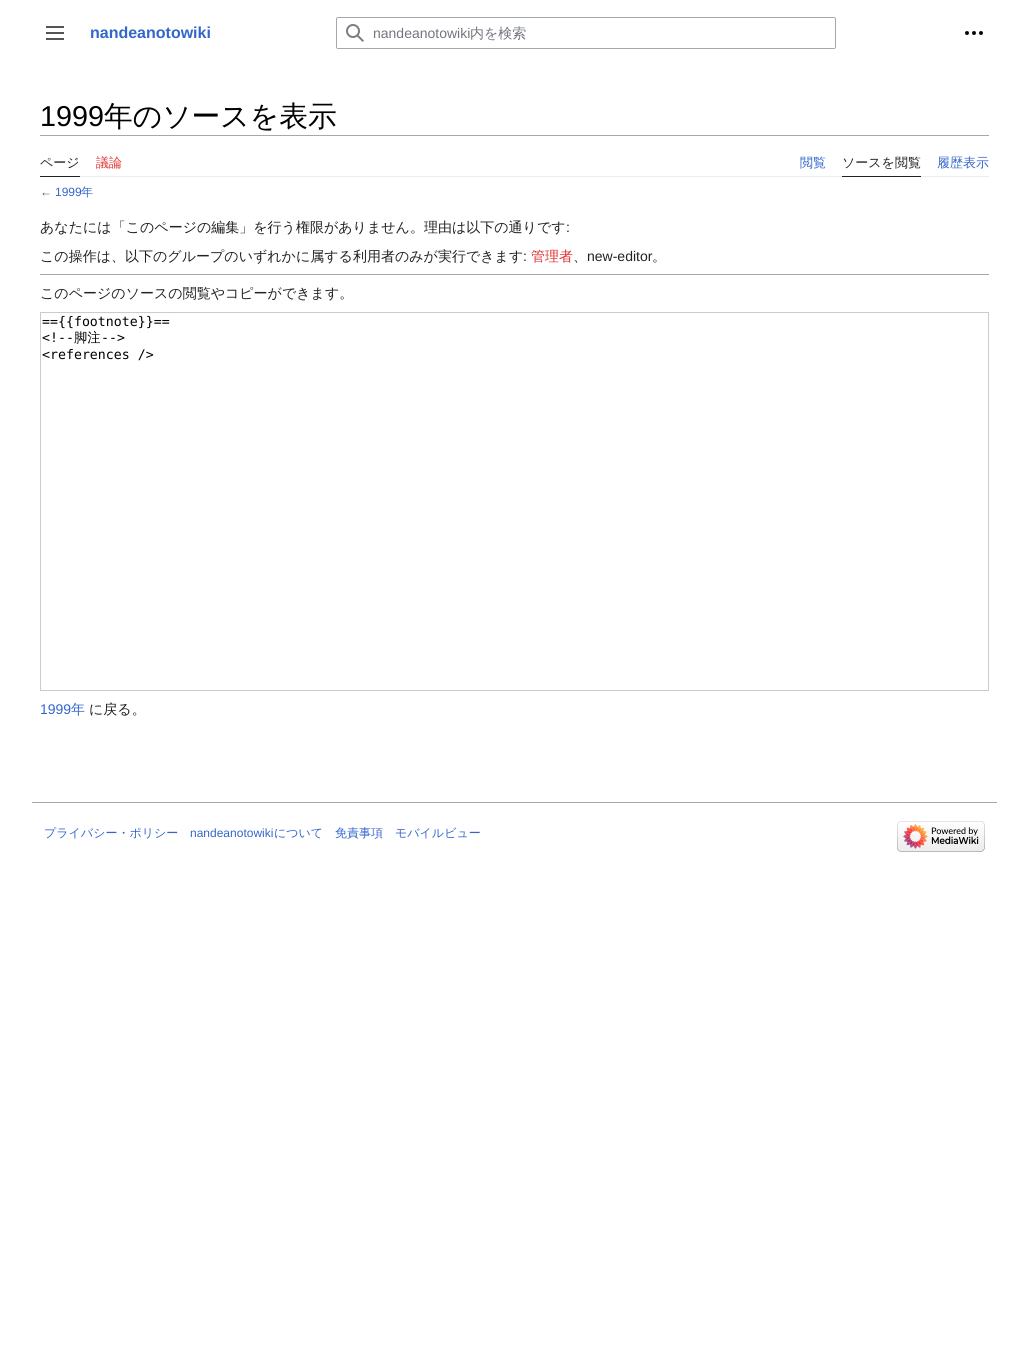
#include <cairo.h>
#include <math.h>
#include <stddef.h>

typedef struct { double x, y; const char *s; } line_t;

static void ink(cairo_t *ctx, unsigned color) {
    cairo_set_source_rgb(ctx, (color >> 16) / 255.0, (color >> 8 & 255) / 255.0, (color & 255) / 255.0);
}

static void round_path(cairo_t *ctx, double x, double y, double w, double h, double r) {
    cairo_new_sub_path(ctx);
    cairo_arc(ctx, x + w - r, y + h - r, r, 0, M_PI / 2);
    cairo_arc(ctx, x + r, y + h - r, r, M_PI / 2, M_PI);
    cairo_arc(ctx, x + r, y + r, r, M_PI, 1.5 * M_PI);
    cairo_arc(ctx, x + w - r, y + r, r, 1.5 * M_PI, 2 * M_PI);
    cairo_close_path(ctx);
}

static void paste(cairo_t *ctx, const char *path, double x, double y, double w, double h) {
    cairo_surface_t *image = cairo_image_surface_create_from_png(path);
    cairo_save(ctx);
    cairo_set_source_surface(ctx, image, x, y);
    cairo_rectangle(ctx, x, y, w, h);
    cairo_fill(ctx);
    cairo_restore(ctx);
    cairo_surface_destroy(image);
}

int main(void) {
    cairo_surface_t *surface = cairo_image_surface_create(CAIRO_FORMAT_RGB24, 1029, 1354);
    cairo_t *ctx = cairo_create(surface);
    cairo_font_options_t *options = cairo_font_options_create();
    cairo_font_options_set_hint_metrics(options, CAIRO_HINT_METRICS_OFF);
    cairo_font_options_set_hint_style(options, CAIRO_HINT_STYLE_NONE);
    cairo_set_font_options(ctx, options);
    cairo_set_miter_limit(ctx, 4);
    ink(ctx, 0xFFFFFF);
    cairo_paint(ctx);
    paste(ctx, "media/1.png", 46, 26, 18, 14);
    cairo_select_font_face(ctx, "Liberation Sans", CAIRO_FONT_SLANT_NORMAL, CAIRO_FONT_WEIGHT_BOLD);
    cairo_set_font_size(ctx, 16);
    ink(ctx, 0x3366CC);
    cairo_move_to(ctx, 90, 38);
    cairo_show_text(ctx, "nandeanotowiki");
    round_path(ctx, 336.5, 17.5, 499, 31, 1.5);
    ink(ctx, 0xA2A9B1);
    cairo_set_line_width(ctx, 1);
    cairo_stroke(ctx);
    paste(ctx, "media/2.png", 346, 24, 18, 18);
    cairo_select_font_face(ctx, "Liberation Sans", CAIRO_FONT_SLANT_NORMAL, CAIRO_FONT_WEIGHT_NORMAL);
    cairo_set_font_size(ctx, 14);
    ink(ctx, 0x72777D);
    cairo_move_to(ctx, 373, 38);
    cairo_show_text(ctx, "nandeanotowiki");
    cairo_select_font_face(ctx, "WenQuanYi Zen Hei Medium", CAIRO_FONT_SLANT_NORMAL, CAIRO_FONT_WEIGHT_NORMAL);
    cairo_move_to(ctx, 470, 38);
    cairo_show_text(ctx, "内を検索");
    paste(ctx, "media/3.png", 965, 31, 18, 4);
    ink(ctx, 0xA2A9B1);
    cairo_rectangle(ctx, 40, 135, 949, 1);
    cairo_fill(ctx);
    cairo_select_font_face(ctx, "Liberation Sans", CAIRO_FONT_SLANT_NORMAL, CAIRO_FONT_WEIGHT_NORMAL);
    cairo_set_font_size(ctx, 28.75);
    ink(ctx, 0x000000);
    cairo_move_to(ctx, 40, 126);
    cairo_show_text(ctx, "1999");
    cairo_select_font_face(ctx, "WenQuanYi Zen Hei Medium", CAIRO_FONT_SLANT_NORMAL, CAIRO_FONT_WEIGHT_NORMAL);
    cairo_move_to(ctx, 104, 126);
    cairo_show_text(ctx, "年のソースを表示");
    ink(ctx, 0xEAECF0);
    cairo_rectangle(ctx, 80, 176, 909, 1);
    cairo_fill(ctx);
    ink(ctx, 0x202122);
    cairo_rectangle(ctx, 40, 176, 40, 1);
    cairo_fill(ctx);
    cairo_set_font_size(ctx, 13);
    cairo_move_to(ctx, 40, 167);
    cairo_show_text(ctx, "ページ");
    ink(ctx, 0xDD3333);
    cairo_move_to(ctx, 96, 167);
    cairo_show_text(ctx, "議論");
    ink(ctx, 0x3366CC);
    cairo_move_to(ctx, 800, 167);
    cairo_show_text(ctx, "閲覧");
    ink(ctx, 0x202122);
    cairo_rectangle(ctx, 842, 176, 79, 1);
    cairo_fill(ctx);
    cairo_move_to(ctx, 842, 167);
    cairo_show_text(ctx, "ソースを閲覧");
    ink(ctx, 0x3366CC);
    cairo_move_to(ctx, 937, 167);
    cairo_show_text(ctx, "履歴表示");
    cairo_select_font_face(ctx, "Liberation Sans", CAIRO_FONT_SLANT_NORMAL, CAIRO_FONT_WEIGHT_NORMAL);
    cairo_set_font_size(ctx, 12);
    ink(ctx, 0x54595D);
    cairo_move_to(ctx, 40, 196);
    cairo_show_text(ctx, "←");
    ink(ctx, 0x3366CC);
    cairo_move_to(ctx, 55, 196);
    cairo_show_text(ctx, "1999");
    cairo_select_font_face(ctx, "WenQuanYi Zen Hei Medium", CAIRO_FONT_SLANT_NORMAL, CAIRO_FONT_WEIGHT_NORMAL);
    cairo_move_to(ctx, 81, 196);
    cairo_show_text(ctx, "年");
    cairo_set_font_size(ctx, 14);
    ink(ctx, 0x202122);
    cairo_move_to(ctx, 40, 232);
    cairo_show_text(ctx, "あなたには「このページの編集」を行う権限がありません。理由は以下の通りです");
    cairo_select_font_face(ctx, "Liberation Sans", CAIRO_FONT_SLANT_NORMAL, CAIRO_FONT_WEIGHT_NORMAL);
    cairo_move_to(ctx, 566, 232);
    cairo_show_text(ctx, ":");
    cairo_select_font_face(ctx, "WenQuanYi Zen Hei Medium", CAIRO_FONT_SLANT_NORMAL, CAIRO_FONT_WEIGHT_NORMAL);
    cairo_move_to(ctx, 40, 261);
    cairo_show_text(ctx, "この操作は、以下のグループのいずれかに属する利用者のみが実行できます");
    cairo_select_font_face(ctx, "Liberation Sans", CAIRO_FONT_SLANT_NORMAL, CAIRO_FONT_WEIGHT_NORMAL);
    cairo_move_to(ctx, 523, 261);
    cairo_show_text(ctx, ":");
    cairo_select_font_face(ctx, "WenQuanYi Zen Hei Medium", CAIRO_FONT_SLANT_NORMAL, CAIRO_FONT_WEIGHT_NORMAL);
    ink(ctx, 0xDD3333);
    cairo_move_to(ctx, 531, 261);
    cairo_show_text(ctx, "管理者");
    ink(ctx, 0x202122);
    cairo_move_to(ctx, 573, 261);
    cairo_show_text(ctx, "、");
    cairo_select_font_face(ctx, "Liberation Sans", CAIRO_FONT_SLANT_NORMAL, CAIRO_FONT_WEIGHT_NORMAL);
    cairo_move_to(ctx, 587, 261);
    cairo_show_text(ctx, "new-editor");
    cairo_select_font_face(ctx, "WenQuanYi Zen Hei Medium", CAIRO_FONT_SLANT_NORMAL, CAIRO_FONT_WEIGHT_NORMAL);
    cairo_move_to(ctx, 652, 261);
    cairo_show_text(ctx, "。");
    ink(ctx, 0xA2A9B1);
    cairo_rectangle(ctx, 40, 274, 949, 1);
    cairo_fill(ctx);
    ink(ctx, 0x202122);
    cairo_move_to(ctx, 40, 298);
    cairo_show_text(ctx, "このページのソースの閲覧やコピーができます。");
    cairo_rectangle(ctx, 40.5, 312.5, 948, 378);
    ink(ctx, 0xC8CCD1);
    cairo_stroke(ctx);
    cairo_select_font_face(ctx, "DejaVu Sans Mono", CAIRO_FONT_SLANT_NORMAL, CAIRO_FONT_WEIGHT_NORMAL);
    cairo_set_font_size(ctx, 13.25);
    ink(ctx, 0x000000);
    cairo_move_to(ctx, 42, 326);
    cairo_show_text(ctx, "=={{footnote}}==");
    cairo_move_to(ctx, 42, 342);
    cairo_show_text(ctx, "<!--");
    cairo_select_font_face(ctx, "WenQuanYi Zen Hei Medium", CAIRO_FONT_SLANT_NORMAL, CAIRO_FONT_WEIGHT_NORMAL);
    cairo_move_to(ctx, 74, 342);
    cairo_show_text(ctx, "脚注");
    cairo_select_font_face(ctx, "DejaVu Sans Mono", CAIRO_FONT_SLANT_NORMAL, CAIRO_FONT_WEIGHT_NORMAL);
    cairo_move_to(ctx, 101, 342);
    cairo_show_text(ctx, "-->");
    cairo_move_to(ctx, 42, 359);
    cairo_show_text(ctx, "<references />");
    cairo_select_font_face(ctx, "Liberation Sans", CAIRO_FONT_SLANT_NORMAL, CAIRO_FONT_WEIGHT_NORMAL);
    cairo_set_font_size(ctx, 14);
    ink(ctx, 0x3366CC);
    cairo_move_to(ctx, 40, 714);
    cairo_show_text(ctx, "1999");
    cairo_select_font_face(ctx, "WenQuanYi Zen Hei Medium", CAIRO_FONT_SLANT_NORMAL, CAIRO_FONT_WEIGHT_NORMAL);
    cairo_move_to(ctx, 71, 714);
    cairo_show_text(ctx, "年");
    ink(ctx, 0x202122);
    cairo_move_to(ctx, 89, 714);
    cairo_show_text(ctx, "に戻る。");
    ink(ctx, 0xA2A9B1);
    cairo_rectangle(ctx, 32, 802, 965, 1);
    cairo_fill(ctx);
    cairo_set_font_size(ctx, 12);
    ink(ctx, 0x3366CC);
    cairo_move_to(ctx, 44, 837);
    cairo_show_text(ctx, "プライバシー・ポリシー");
    cairo_select_font_face(ctx, "Liberation Sans", CAIRO_FONT_SLANT_NORMAL, CAIRO_FONT_WEIGHT_NORMAL);
    cairo_move_to(ctx, 190, 837);
    cairo_show_text(ctx, "nandeanotowiki");
    cairo_select_font_face(ctx, "WenQuanYi Zen Hei Medium", CAIRO_FONT_SLANT_NORMAL, CAIRO_FONT_WEIGHT_NORMAL);
    {
        static const line_t items[] = {
            {274, 837, "について"},
            {335, 837, "免責事項"},
            {395, 837, "モバイルビュー"},
        };
        for (size_t i = 0; i < sizeof items / sizeof *items; i++) {
            cairo_move_to(ctx, items[i].x, items[i].y);
            cairo_show_text(ctx, items[i].s);
        }
    }
    paste(ctx, "media/4.png", 897, 821, 88, 31);
    cairo_surface_write_to_png(surface, "image.png");
    cairo_font_options_destroy(options);
    cairo_destroy(ctx);
    cairo_surface_destroy(surface);
    return 0;
}
